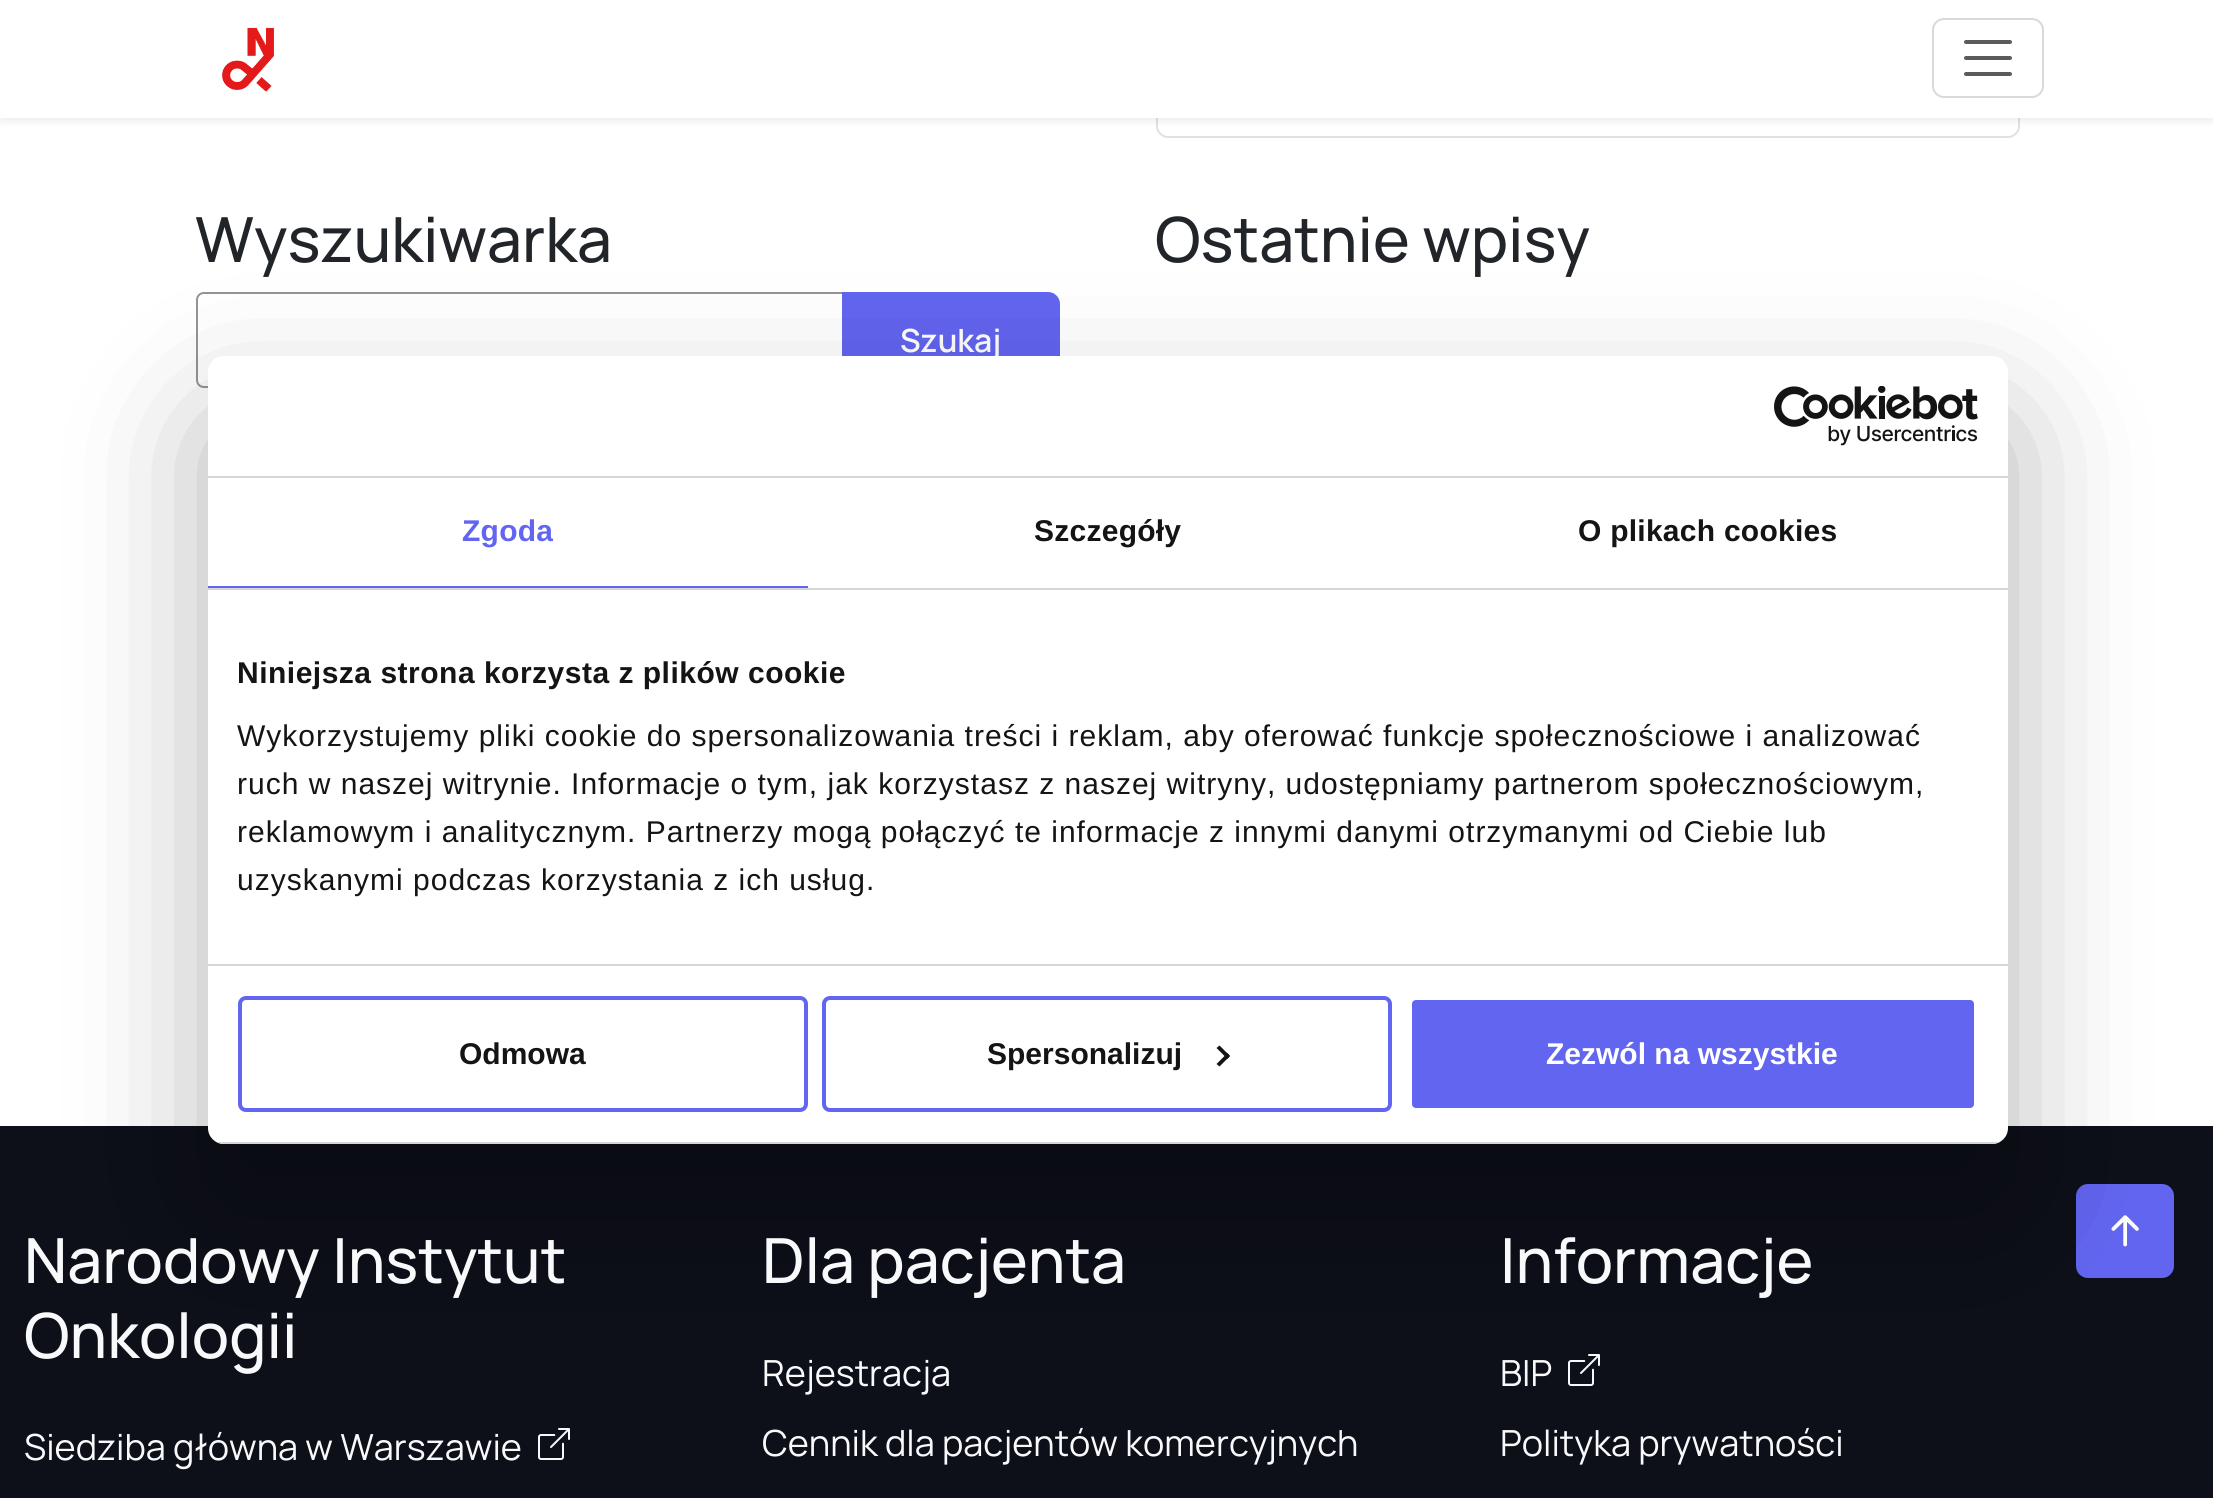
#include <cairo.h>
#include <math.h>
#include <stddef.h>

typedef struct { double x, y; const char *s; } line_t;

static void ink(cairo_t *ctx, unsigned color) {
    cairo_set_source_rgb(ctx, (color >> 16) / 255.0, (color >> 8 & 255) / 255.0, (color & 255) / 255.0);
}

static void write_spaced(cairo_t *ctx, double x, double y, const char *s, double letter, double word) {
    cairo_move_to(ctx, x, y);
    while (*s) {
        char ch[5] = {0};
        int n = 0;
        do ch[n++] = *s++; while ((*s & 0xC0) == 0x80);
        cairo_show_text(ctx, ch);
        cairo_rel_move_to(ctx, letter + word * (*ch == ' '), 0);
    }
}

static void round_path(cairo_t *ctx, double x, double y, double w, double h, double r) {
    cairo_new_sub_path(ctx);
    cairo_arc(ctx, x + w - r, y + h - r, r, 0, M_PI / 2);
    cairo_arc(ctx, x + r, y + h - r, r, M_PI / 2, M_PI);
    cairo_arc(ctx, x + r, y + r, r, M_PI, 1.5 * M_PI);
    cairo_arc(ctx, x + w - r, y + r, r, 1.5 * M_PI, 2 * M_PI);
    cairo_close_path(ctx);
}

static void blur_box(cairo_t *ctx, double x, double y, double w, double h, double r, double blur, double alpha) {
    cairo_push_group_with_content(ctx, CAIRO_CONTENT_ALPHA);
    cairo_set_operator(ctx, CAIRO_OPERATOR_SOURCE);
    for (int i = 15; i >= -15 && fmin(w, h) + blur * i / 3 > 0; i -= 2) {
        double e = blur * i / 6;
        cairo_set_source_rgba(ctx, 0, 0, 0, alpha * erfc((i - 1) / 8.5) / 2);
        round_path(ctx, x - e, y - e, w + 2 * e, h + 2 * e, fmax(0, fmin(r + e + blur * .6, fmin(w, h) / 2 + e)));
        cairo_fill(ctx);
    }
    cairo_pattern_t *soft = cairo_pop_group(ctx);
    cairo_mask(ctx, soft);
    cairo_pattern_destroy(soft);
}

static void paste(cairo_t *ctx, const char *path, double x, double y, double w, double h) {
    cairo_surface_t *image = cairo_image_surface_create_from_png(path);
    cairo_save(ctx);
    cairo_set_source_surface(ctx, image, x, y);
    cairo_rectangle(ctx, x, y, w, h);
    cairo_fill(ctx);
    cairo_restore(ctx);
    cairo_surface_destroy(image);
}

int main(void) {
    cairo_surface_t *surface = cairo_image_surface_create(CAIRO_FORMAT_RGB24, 2213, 1498);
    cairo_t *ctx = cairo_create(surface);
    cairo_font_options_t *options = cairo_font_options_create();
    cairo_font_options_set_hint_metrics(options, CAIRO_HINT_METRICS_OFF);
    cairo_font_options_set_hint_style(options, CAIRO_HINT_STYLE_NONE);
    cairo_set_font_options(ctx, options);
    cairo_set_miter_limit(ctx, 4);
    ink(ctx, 0xFFFFFF);
    cairo_paint(ctx);
    round_path(ctx, 1157, 63, 862, 74, 11);
    ink(ctx, 0xDEE2E6);
    cairo_stroke(ctx);
    ink(ctx, 0x000000);
    blur_box(ctx, 0, 4, 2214, 118, 0, 4, 0.07);
    ink(ctx, 0xFFFFFF);
    cairo_rectangle(ctx, 0, 0, 2213, 118);
    cairo_fill(ctx);
    paste(ctx, "media/1.png", 222, 27, 52, 65);
    round_path(ctx, 1933, 19, 110, 78, 11);
    ink(ctx, 0xD9D9D9);
    cairo_stroke(ctx);
    cairo_new_path(ctx);
    cairo_move_to(ctx, 1966, 42);
    cairo_line_to(ctx, 2010, 42);
    cairo_move_to(ctx, 1966, 58);
    cairo_line_to(ctx, 2010, 58);
    cairo_move_to(ctx, 1966, 74);
    cairo_line_to(ctx, 2010, 74);
    ink(ctx, 0x595C5F);
    cairo_set_line_width(ctx, 4);
    cairo_set_line_cap(ctx, CAIRO_LINE_CAP_ROUND);
    cairo_stroke(ctx);
    cairo_select_font_face(ctx, "Manrope Medium", CAIRO_FONT_SLANT_NORMAL, CAIRO_FONT_WEIGHT_NORMAL);
    cairo_set_font_size(ctx, 62.25);
    ink(ctx, 0x212529);
    cairo_move_to(ctx, 195, 262);
    cairo_show_text(ctx, "Wyszukiwarka");
    cairo_new_path(ctx);
    cairo_move_to(ctx, 204, 293);
    cairo_line_to(ctx, 843, 293);
    cairo_line_to(ctx, 843, 387);
    cairo_line_to(ctx, 204, 387);
    cairo_curve_to(ctx, 200, 387, 197, 384, 197, 380);
    cairo_line_to(ctx, 197, 300);
    cairo_curve_to(ctx, 197, 296, 200, 293, 204, 293);
    cairo_close_path(ctx);
    ink(ctx, 0x949494);
    cairo_set_line_width(ctx, 2);
    cairo_set_line_cap(ctx, CAIRO_LINE_CAP_BUTT);
    cairo_stroke(ctx);
    ink(ctx, 0x6265F0);
    cairo_new_path(ctx);
    cairo_move_to(ctx, 843, 293);
    cairo_line_to(ctx, 1048, 293);
    cairo_curve_to(ctx, 1054, 293, 1059, 298, 1059, 304);
    cairo_line_to(ctx, 1059, 376);
    cairo_curve_to(ctx, 1059, 382, 1054, 387, 1048, 387);
    cairo_line_to(ctx, 843, 387);
    cairo_close_path(ctx);
    cairo_fill_preserve(ctx);
    cairo_stroke(ctx);
    cairo_select_font_face(ctx, "Manrope SemiBold", CAIRO_FONT_SLANT_NORMAL, CAIRO_FONT_WEIGHT_NORMAL);
    cairo_set_font_size(ctx, 32);
    ink(ctx, 0xFFFFFF);
    cairo_move_to(ctx, 900, 352);
    cairo_show_text(ctx, "Szukaj");
    cairo_select_font_face(ctx, "Manrope Medium", CAIRO_FONT_SLANT_NORMAL, CAIRO_FONT_WEIGHT_NORMAL);
    cairo_set_font_size(ctx, 62.25);
    ink(ctx, 0x212529);
    cairo_move_to(ctx, 1155, 262);
    cairo_show_text(ctx, "Ostatnie wpisy");
    ink(ctx, 0x0D0F19);
    cairo_rectangle(ctx, 0, 1126, 2213, 372);
    cairo_fill(ctx);
    paste(ctx, "media/3.png", 1568, 1354, 32, 32);
    ink(ctx, 0x6265F0);
    round_path(ctx, 2077, 1185, 96, 92, 11);
    cairo_fill_preserve(ctx);
    cairo_stroke(ctx);
    paste(ctx, "media/4.png", 2111, 1215, 28, 32);
    ink(ctx, 0x000000);
    blur_box(ctx, 208, 420, 1800, 788, 16, 68, 0.3);
    ink(ctx, 0xFFFFFF);
    round_path(ctx, 208, 356, 1800, 788, 16);
    cairo_fill(ctx);
    ink(ctx, 0xD6D6D6);
    cairo_rectangle(ctx, 208, 476, 1800, 2);
    cairo_fill(ctx);
    paste(ctx, "media/2.png", 1774, 386, 204, 60);
    cairo_rectangle(ctx, 208, 588, 1800, 2);
    cairo_fill(ctx);
    ink(ctx, 0x6265F0);
    cairo_rectangle(ctx, 208, 586, 600, 2);
    cairo_fill(ctx);
    cairo_select_font_face(ctx, "Liberation Sans", CAIRO_FONT_SLANT_NORMAL, CAIRO_FONT_WEIGHT_BOLD);
    cairo_set_font_size(ctx, 30);
    write_spaced(ctx, 462, 541, "Zgoda", 0.25, 0);
    ink(ctx, 0x141414);
    write_spaced(ctx, 1034, 541, "Szczegóły", 0.25, 0);
    write_spaced(ctx, 1578, 541, "O plikach cookies", 0.25, 0);
    ink(ctx, 0xD6D6D6);
    cairo_rectangle(ctx, 208, 964, 1800, 2);
    cairo_fill(ctx);
    ink(ctx, 0x141414);
    write_spaced(ctx, 237, 683, "Niniejsza strona korzysta z plików cookie", 0.5, 0);
    cairo_select_font_face(ctx, "Liberation Sans", CAIRO_FONT_SLANT_NORMAL, CAIRO_FONT_WEIGHT_NORMAL);
    {
        static const line_t items[] = {
            {237, 746, "Wykorzystujemy pliki cookie do spersonalizowania treści i reklam, aby oferować funkcje społecznościowe i analizować"},
            {237, 794, "ruch w naszej witrynie. Informacje o tym, jak korzystasz z naszej witryny, udostępniamy partnerom społecznościowym,"},
            {237, 842, "reklamowym i analitycznym. Partnerzy mogą połączyć te informacje z innymi danymi otrzymanymi od Ciebie lub"},
            {237, 890, "uzyskanymi podczas korzystania z ich usług."},
        };
        for (size_t i = 0; i < sizeof items / sizeof *items; i++) {
            write_spaced(ctx, items[i].x, items[i].y, items[i].s, 1, 0);
        }
    }
    cairo_save(ctx);
    round_path(ctx, 208, 356, 1800, 788, 16);
    cairo_clip(ctx);
    ink(ctx, 0xD6D6D6);
    cairo_rectangle(ctx, 208, 1142, 1800, 2);
    cairo_fill(ctx);
    cairo_restore(ctx);
    round_path(ctx, 240, 998, 566, 112, 6);
    ink(ctx, 0x6265F0);
    cairo_set_line_width(ctx, 4);
    cairo_stroke(ctx);
    cairo_select_font_face(ctx, "Liberation Sans", CAIRO_FONT_SLANT_NORMAL, CAIRO_FONT_WEIGHT_BOLD);
    ink(ctx, 0x141414);
    cairo_move_to(ctx, 459, 1064);
    cairo_show_text(ctx, "Odmowa");
    round_path(ctx, 824, 998, 566, 112, 6);
    ink(ctx, 0x6265F0);
    cairo_stroke(ctx);
    ink(ctx, 0x141414);
    cairo_move_to(ctx, 987, 1064);
    cairo_show_text(ctx, "Spersonalizuj");
    cairo_new_path(ctx);
    cairo_move_to(ctx, 1219.5, 1045.5);
    cairo_line_to(ctx, 1230, 1056);
    cairo_line_to(ctx, 1227.5, 1059);
    cairo_line_to(ctx, 1216.5, 1048);
    cairo_close_path(ctx);
    cairo_fill(ctx);
    cairo_new_path(ctx);
    cairo_move_to(ctx, 1227.5, 1053);
    cairo_line_to(ctx, 1230, 1056);
    cairo_line_to(ctx, 1219.5, 1066.5);
    cairo_line_to(ctx, 1216.5, 1064);
    cairo_close_path(ctx);
    cairo_fill(ctx);
    ink(ctx, 0x6265F0);
    round_path(ctx, 1410, 998, 566, 112, 6);
    cairo_fill_preserve(ctx);
    ink(ctx, 0xFFFFFF);
    cairo_stroke(ctx);
    cairo_move_to(ctx, 1546, 1064);
    cairo_show_text(ctx, "Zezwól na wszystkie");
    cairo_select_font_face(ctx, "Manrope Medium", CAIRO_FONT_SLANT_NORMAL, CAIRO_FONT_WEIGHT_NORMAL);
    cairo_set_font_size(ctx, 62.25);
    ink(ctx, 0xF8F9FA);
    cairo_move_to(ctx, 24, 1283);
    cairo_show_text(ctx, "Narodowy Instytut");
    cairo_move_to(ctx, 24, 1358);
    cairo_show_text(ctx, "Onkologii");
    cairo_select_font_face(ctx, "Manrope", CAIRO_FONT_SLANT_NORMAL, CAIRO_FONT_WEIGHT_NORMAL);
    cairo_set_font_size(ctx, 36);
    cairo_move_to(ctx, 24, 1460);
    cairo_show_text(ctx, "Siedziba główna w Warszawie");
    paste(ctx, "media/3.png", 538, 1428, 32, 32);
    cairo_select_font_face(ctx, "Manrope Medium", CAIRO_FONT_SLANT_NORMAL, CAIRO_FONT_WEIGHT_NORMAL);
    cairo_set_font_size(ctx, 62.25);
    cairo_move_to(ctx, 762, 1283);
    cairo_show_text(ctx, "Dla pacjenta");
    cairo_select_font_face(ctx, "Manrope", CAIRO_FONT_SLANT_NORMAL, CAIRO_FONT_WEIGHT_NORMAL);
    cairo_set_font_size(ctx, 36);
    cairo_move_to(ctx, 762, 1386);
    cairo_show_text(ctx, "Rejestracja");
    cairo_move_to(ctx, 762, 1456);
    cairo_show_text(ctx, "Cennik dla pacjentów komercyjnych");
    cairo_select_font_face(ctx, "Manrope Medium", CAIRO_FONT_SLANT_NORMAL, CAIRO_FONT_WEIGHT_NORMAL);
    cairo_set_font_size(ctx, 62.25);
    cairo_move_to(ctx, 1500, 1283);
    cairo_show_text(ctx, "Informacje");
    cairo_select_font_face(ctx, "Manrope", CAIRO_FONT_SLANT_NORMAL, CAIRO_FONT_WEIGHT_NORMAL);
    cairo_set_font_size(ctx, 36);
    cairo_move_to(ctx, 1500, 1386);
    cairo_show_text(ctx, "BIP");
    cairo_move_to(ctx, 1500, 1456);
    cairo_show_text(ctx, "Polityka prywatności");
    cairo_surface_write_to_png(surface, "image.png");
    cairo_font_options_destroy(options);
    cairo_destroy(ctx);
    cairo_surface_destroy(surface);
    return 0;
}
